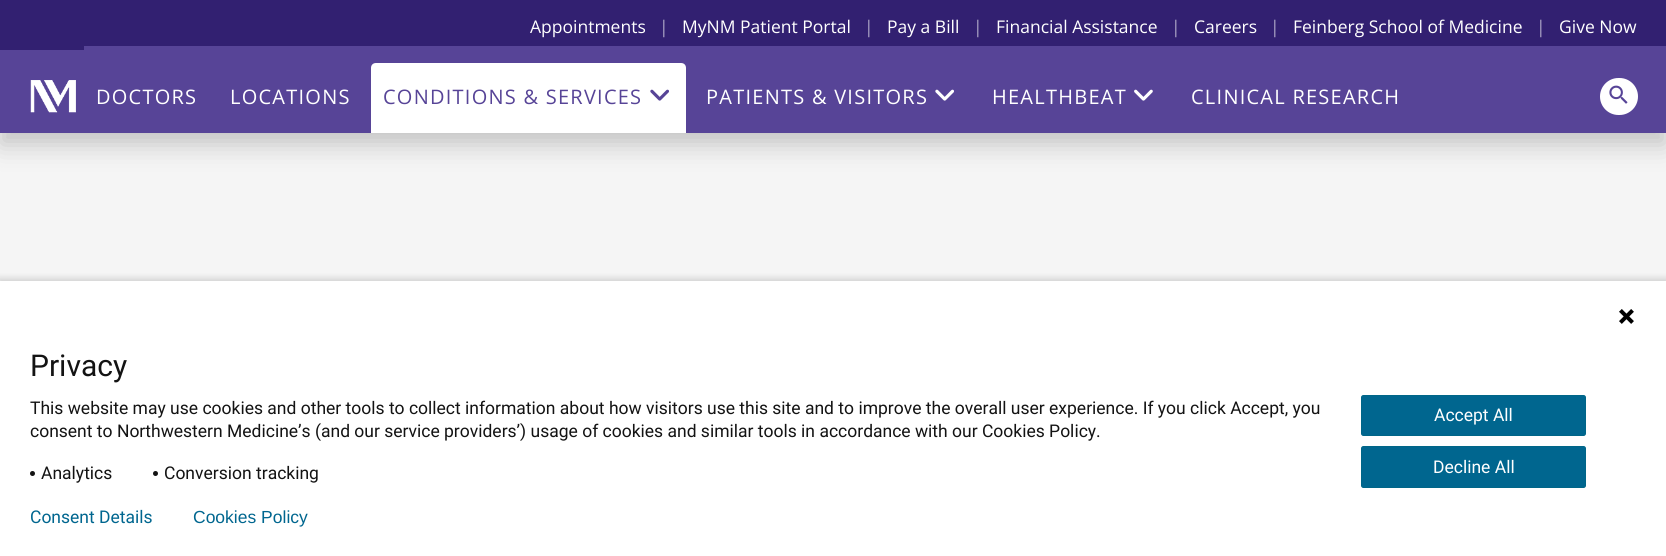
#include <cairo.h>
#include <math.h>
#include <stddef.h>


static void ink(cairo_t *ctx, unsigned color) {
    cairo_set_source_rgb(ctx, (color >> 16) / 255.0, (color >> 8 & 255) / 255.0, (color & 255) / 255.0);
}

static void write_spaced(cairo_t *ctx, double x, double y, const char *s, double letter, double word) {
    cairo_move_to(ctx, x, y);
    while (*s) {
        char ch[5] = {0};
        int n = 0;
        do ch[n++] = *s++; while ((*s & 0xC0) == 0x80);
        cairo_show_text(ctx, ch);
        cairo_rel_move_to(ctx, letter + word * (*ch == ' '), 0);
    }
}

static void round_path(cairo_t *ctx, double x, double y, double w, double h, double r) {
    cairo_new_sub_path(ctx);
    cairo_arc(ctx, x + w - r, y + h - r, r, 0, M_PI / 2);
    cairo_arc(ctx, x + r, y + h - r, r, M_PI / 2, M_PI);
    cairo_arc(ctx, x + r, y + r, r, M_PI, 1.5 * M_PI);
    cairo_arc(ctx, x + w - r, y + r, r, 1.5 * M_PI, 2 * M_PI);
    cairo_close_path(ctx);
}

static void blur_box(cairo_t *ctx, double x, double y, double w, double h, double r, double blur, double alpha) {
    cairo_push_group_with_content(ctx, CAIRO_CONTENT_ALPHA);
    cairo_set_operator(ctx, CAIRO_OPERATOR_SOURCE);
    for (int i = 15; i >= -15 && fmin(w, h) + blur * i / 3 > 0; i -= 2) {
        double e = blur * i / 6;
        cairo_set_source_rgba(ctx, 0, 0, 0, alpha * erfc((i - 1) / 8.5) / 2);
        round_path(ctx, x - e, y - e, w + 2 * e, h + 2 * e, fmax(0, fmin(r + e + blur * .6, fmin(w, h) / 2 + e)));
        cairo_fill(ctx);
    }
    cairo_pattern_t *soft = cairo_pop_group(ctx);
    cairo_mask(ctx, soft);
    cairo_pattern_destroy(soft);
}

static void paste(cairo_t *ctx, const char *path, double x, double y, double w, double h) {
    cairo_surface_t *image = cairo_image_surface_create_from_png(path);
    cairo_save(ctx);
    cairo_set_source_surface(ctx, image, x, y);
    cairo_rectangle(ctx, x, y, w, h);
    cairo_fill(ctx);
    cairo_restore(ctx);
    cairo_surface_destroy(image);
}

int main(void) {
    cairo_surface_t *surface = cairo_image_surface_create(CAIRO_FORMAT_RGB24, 1666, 556);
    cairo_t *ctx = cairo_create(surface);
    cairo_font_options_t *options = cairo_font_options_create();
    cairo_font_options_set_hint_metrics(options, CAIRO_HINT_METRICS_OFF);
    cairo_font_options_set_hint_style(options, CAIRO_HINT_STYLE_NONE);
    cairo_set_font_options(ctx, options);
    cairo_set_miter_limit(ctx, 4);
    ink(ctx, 0xF5F5F5);
    cairo_paint(ctx);
    ink(ctx, 0x000000);
    blur_box(ctx, 0, 13, 1666, 132, 0, 12.5, 0.2);
    ink(ctx, 0x574497);
    cairo_rectangle(ctx, 0, 50, 84, 83);
    cairo_fill(ctx);
    ink(ctx, 0x322071);
    cairo_rectangle(ctx, 0, 0, 1666, 50);
    cairo_fill(ctx);
    cairo_select_font_face(ctx, "Open Sans", CAIRO_FONT_SLANT_NORMAL, CAIRO_FONT_WEIGHT_NORMAL);
    cairo_set_font_size(ctx, 17.5);
    ink(ctx, 0xFFFFFF);
    cairo_move_to(ctx, 530, 33);
    cairo_show_text(ctx, "Appointments");
    ink(ctx, 0xADA6C6);
    cairo_move_to(ctx, 659, 33);
    cairo_show_text(ctx, "|");
    ink(ctx, 0xFFFFFF);
    cairo_move_to(ctx, 682, 33);
    cairo_show_text(ctx, "MyNM Patient Portal");
    ink(ctx, 0xADA6C6);
    cairo_move_to(ctx, 864, 33);
    cairo_show_text(ctx, "|");
    ink(ctx, 0xFFFFFF);
    cairo_move_to(ctx, 887, 33);
    cairo_show_text(ctx, "Pay a Bill");
    ink(ctx, 0xADA6C6);
    cairo_move_to(ctx, 973, 33);
    cairo_show_text(ctx, "|");
    ink(ctx, 0xFFFFFF);
    cairo_move_to(ctx, 996, 33);
    cairo_show_text(ctx, "Financial Assistance");
    ink(ctx, 0xADA6C6);
    cairo_move_to(ctx, 1171, 33);
    cairo_show_text(ctx, "|");
    ink(ctx, 0xFFFFFF);
    cairo_move_to(ctx, 1194, 33);
    cairo_show_text(ctx, "Careers");
    ink(ctx, 0xADA6C6);
    cairo_move_to(ctx, 1270, 33);
    cairo_show_text(ctx, "|");
    ink(ctx, 0xFFFFFF);
    cairo_move_to(ctx, 1293, 33);
    cairo_show_text(ctx, "Feinberg School of Medicine");
    ink(ctx, 0xADA6C6);
    cairo_move_to(ctx, 1536, 33);
    cairo_show_text(ctx, "|");
    ink(ctx, 0xFFFFFF);
    cairo_move_to(ctx, 1559, 33);
    cairo_show_text(ctx, "Give Now");
    paste(ctx, "media/1.png", 30, 80, 46, 33);
    ink(ctx, 0x574497);
    cairo_rectangle(ctx, 84, 46, 1582, 87);
    cairo_fill(ctx);
    cairo_set_font_size(ctx, 20);
    ink(ctx, 0xFFFFFF);
    write_spaced(ctx, 96, 104, "DOCTORS", 1.25, 0);
    write_spaced(ctx, 230, 104, "LOCATIONS", 1.25, 0);
    cairo_new_path(ctx);
    cairo_move_to(ctx, 376, 63);
    cairo_line_to(ctx, 681, 63);
    cairo_curve_to(ctx, 684, 63, 686, 65, 686, 68);
    cairo_line_to(ctx, 686, 133);
    cairo_line_to(ctx, 371, 133);
    cairo_line_to(ctx, 371, 68);
    cairo_curve_to(ctx, 371, 65, 373, 63, 376, 63);
    cairo_close_path(ctx);
    cairo_fill(ctx);
    ink(ctx, 0x574497);
    write_spaced(ctx, 383, 104, "CONDITIONS & SERVICES", 1.25, 0);
    paste(ctx, "media/2.png", 650, 89, 19, 12);
    ink(ctx, 0xFFFFFF);
    write_spaced(ctx, 706, 104, "PATIENTS & VISITORS", 1.25, 0);
    paste(ctx, "media/3.png", 935, 89, 19, 12);
    write_spaced(ctx, 992, 104, "HEALTHBEAT", 1.25, 0);
    paste(ctx, "media/4.png", 1134, 89, 19, 12);
    write_spaced(ctx, 1191, 104, "CLINICAL RESEARCH", 1.25, 0);
    round_path(ctx, 1600, 78, 38, 37, 18.5);
    cairo_fill(ctx);
    paste(ctx, "media/5.png", 1609, 85, 19, 19);
    ink(ctx, 0x000000);
    blur_box(ctx, -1, 278, 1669, 277, 0, 3, 0.14);
    ink(ctx, 0xFFFFFF);
    cairo_rectangle(ctx, 0, 281, 1666, 275);
    cairo_fill(ctx);
    paste(ctx, "media/6.png", 1619, 309, 15, 15);
    cairo_select_font_face(ctx, "Roboto", CAIRO_FONT_SLANT_NORMAL, CAIRO_FONT_WEIGHT_NORMAL);
    cairo_set_font_size(ctx, 30);
    ink(ctx, 0x131313);
    cairo_move_to(ctx, 30, 376);
    cairo_show_text(ctx, "Privacy");
    cairo_set_font_size(ctx, 17.5);
    cairo_move_to(ctx, 30, 414);
    cairo_show_text(ctx, "This website may use cookies and other tools to collect information about how visitors use this site and to improve the overall user experience. If you click Accept, you");
    cairo_move_to(ctx, 30, 437);
    cairo_show_text(ctx, "consent to Northwestern Medicine’s (and our service providers’) usage of cookies and similar tools in accordance with our Cookies Policy.");
    cairo_new_path(ctx);
    cairo_arc(ctx, 32.5, 473.5, 2.5, 0, 2 * M_PI);
    cairo_fill(ctx);
    cairo_move_to(ctx, 41, 479);
    cairo_show_text(ctx, "Analytics");
    cairo_new_path(ctx);
    cairo_arc(ctx, 155.5, 473.5, 2.5, 0, 2 * M_PI);
    cairo_fill(ctx);
    cairo_move_to(ctx, 164, 479);
    cairo_show_text(ctx, "Conversion tracking");
    ink(ctx, 0x00668F);
    round_path(ctx, 1361.5, 395.5, 224, 40, 2);
    cairo_fill_preserve(ctx);
    ink(ctx, 0x006688);
    cairo_set_line_width(ctx, 1);
    cairo_stroke(ctx);
    ink(ctx, 0xFFFFFF);
    cairo_move_to(ctx, 1434, 421);
    cairo_show_text(ctx, "Accept All");
    ink(ctx, 0x00668F);
    round_path(ctx, 1361.5, 446.5, 224, 41, 2);
    cairo_fill_preserve(ctx);
    ink(ctx, 0x006688);
    cairo_stroke(ctx);
    ink(ctx, 0xFFFFFF);
    cairo_move_to(ctx, 1433, 473);
    cairo_show_text(ctx, "Decline All");
    ink(ctx, 0x00668F);
    cairo_move_to(ctx, 30, 523);
    cairo_show_text(ctx, "Consent Details");
    cairo_select_font_face(ctx, "Liberation Sans", CAIRO_FONT_SLANT_NORMAL, CAIRO_FONT_WEIGHT_NORMAL);
    cairo_move_to(ctx, 193, 523);
    cairo_show_text(ctx, "Cookies Policy");
    cairo_surface_write_to_png(surface, "image.png");
    cairo_font_options_destroy(options);
    cairo_destroy(ctx);
    cairo_surface_destroy(surface);
    return 0;
}
